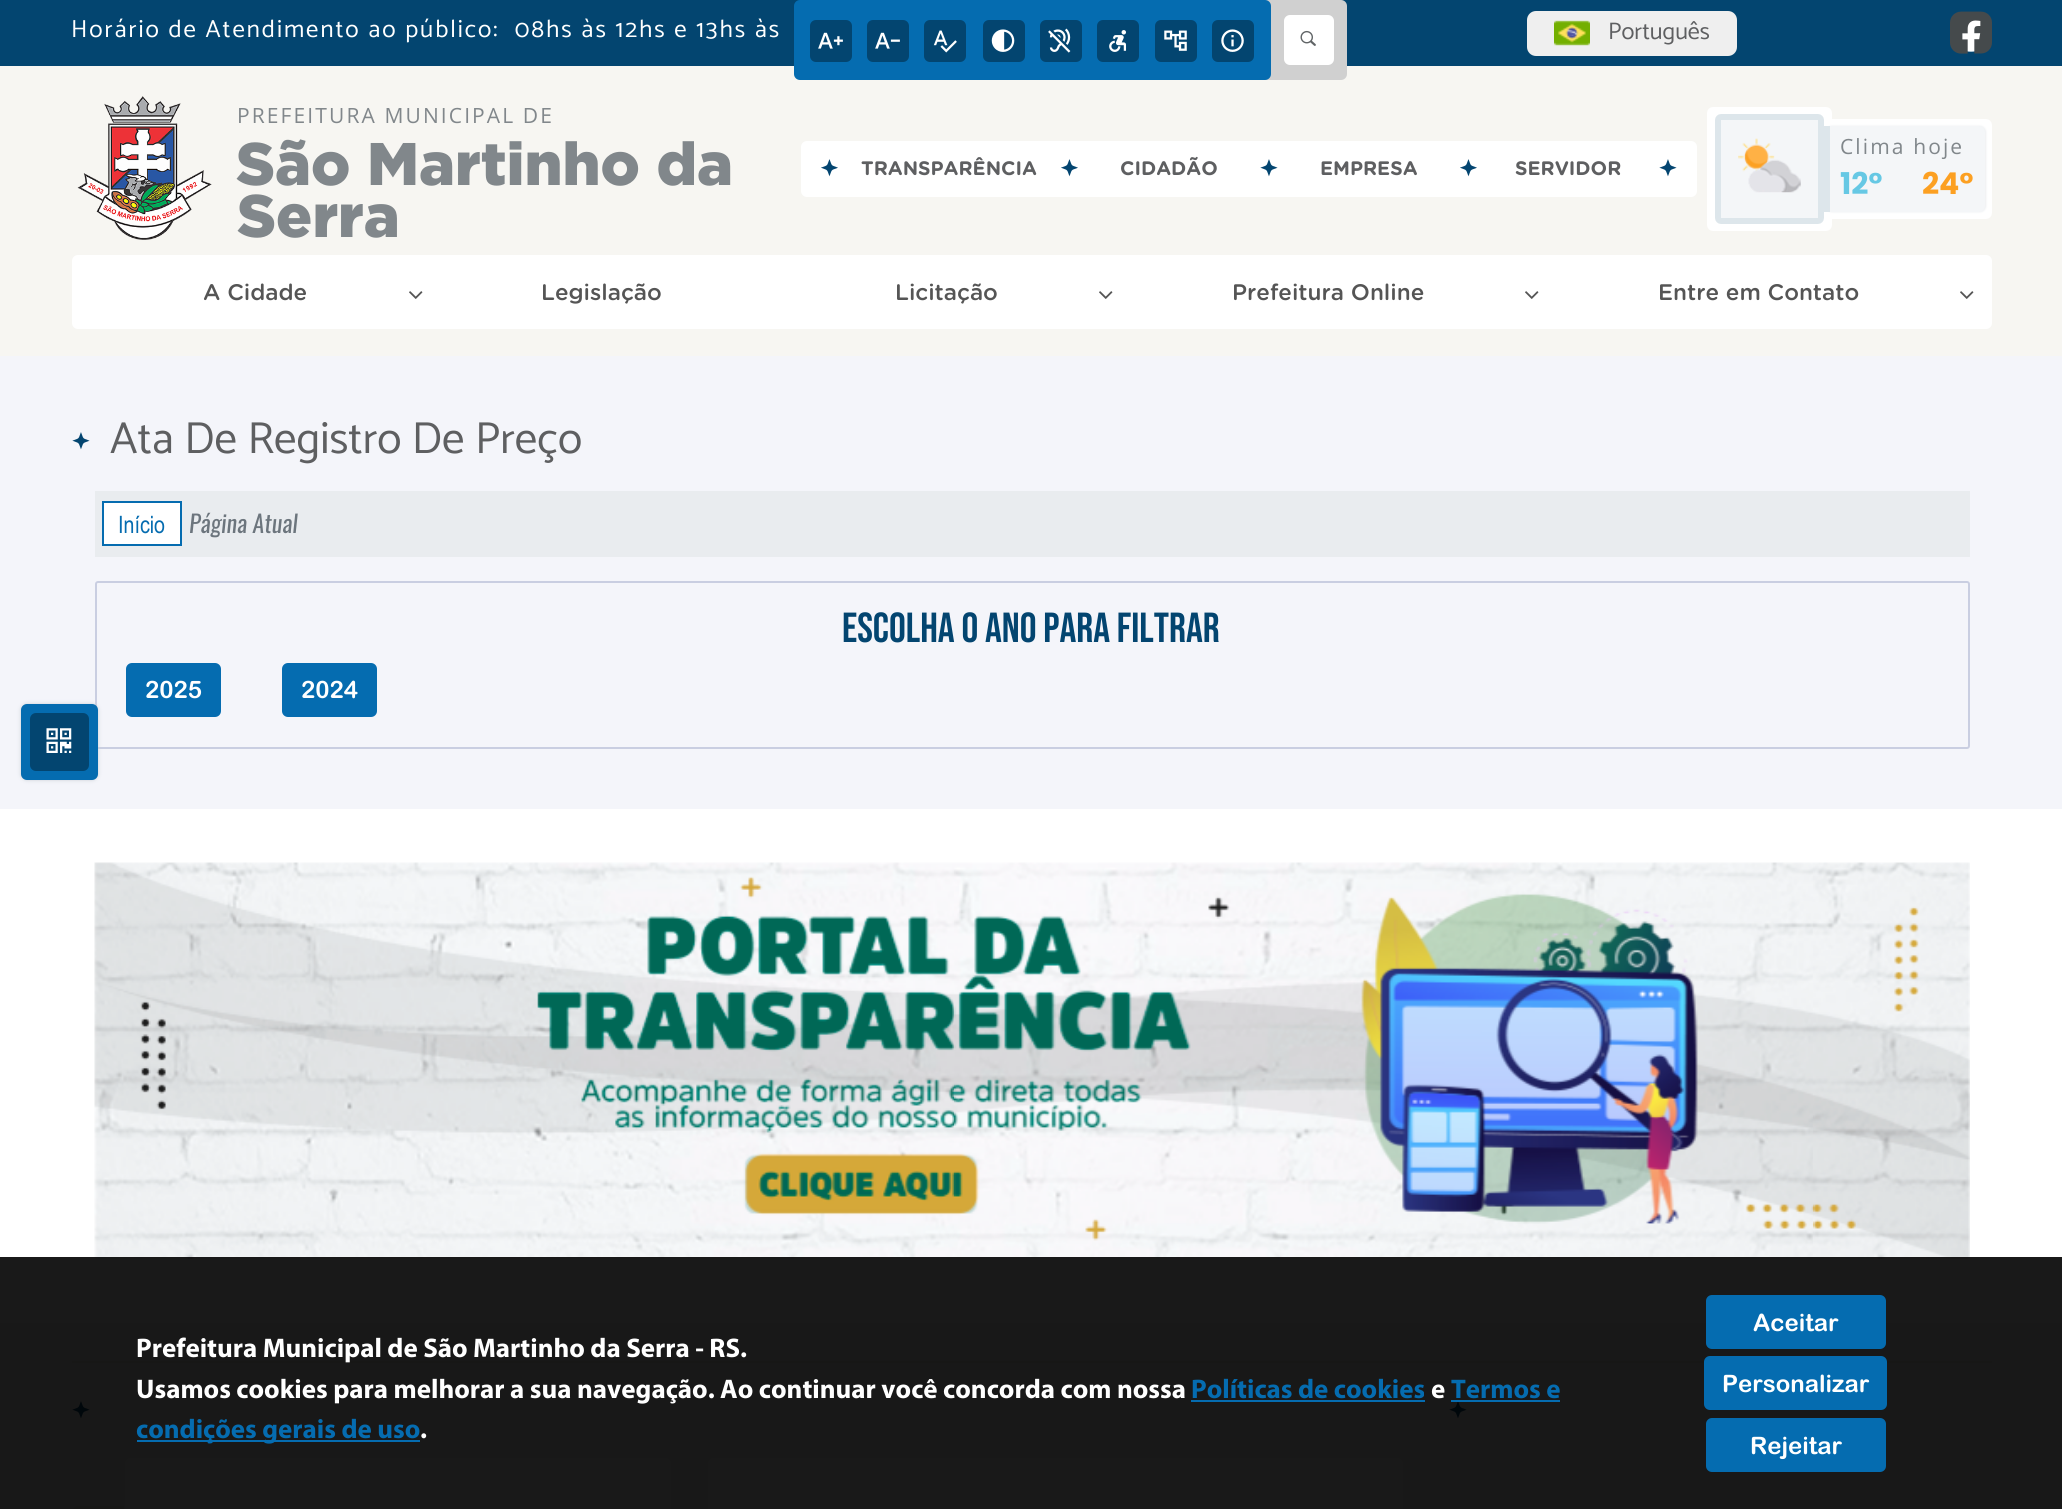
#include <cairo.h>
#include <math.h>
#include <stddef.h>


static void ink(cairo_t *ctx, unsigned color) {
    cairo_set_source_rgb(ctx, (color >> 16) / 255.0, (color >> 8 & 255) / 255.0, (color & 255) / 255.0);
}

static void write_spaced(cairo_t *ctx, double x, double y, const char *s, double letter, double word) {
    cairo_move_to(ctx, x, y);
    while (*s) {
        char ch[5] = {0};
        int n = 0;
        do ch[n++] = *s++; while ((*s & 0xC0) == 0x80);
        cairo_show_text(ctx, ch);
        cairo_rel_move_to(ctx, letter + word * (*ch == ' '), 0);
    }
}

static void round_path(cairo_t *ctx, double x, double y, double w, double h, double r) {
    cairo_new_sub_path(ctx);
    cairo_arc(ctx, x + w - r, y + h - r, r, 0, M_PI / 2);
    cairo_arc(ctx, x + r, y + h - r, r, M_PI / 2, M_PI);
    cairo_arc(ctx, x + r, y + r, r, M_PI, 1.5 * M_PI);
    cairo_arc(ctx, x + w - r, y + r, r, 1.5 * M_PI, 2 * M_PI);
    cairo_close_path(ctx);
}

static void blur_box(cairo_t *ctx, double x, double y, double w, double h, double r, double blur, double alpha) {
    cairo_push_group_with_content(ctx, CAIRO_CONTENT_ALPHA);
    cairo_set_operator(ctx, CAIRO_OPERATOR_SOURCE);
    for (int i = 15; i >= -15 && fmin(w, h) + blur * i / 3 > 0; i -= 2) {
        double e = blur * i / 6;
        cairo_set_source_rgba(ctx, 0, 0, 0, alpha * erfc((i - 1) / 8.5) / 2);
        round_path(ctx, x - e, y - e, w + 2 * e, h + 2 * e, fmax(0, fmin(r + e + blur * .6, fmin(w, h) / 2 + e)));
        cairo_fill(ctx);
    }
    cairo_pattern_t *soft = cairo_pop_group(ctx);
    cairo_mask(ctx, soft);
    cairo_pattern_destroy(soft);
}

static void paste(cairo_t *ctx, const char *path, double x, double y, double w, double h) {
    cairo_surface_t *image = cairo_image_surface_create_from_png(path);
    cairo_save(ctx);
    cairo_set_source_surface(ctx, image, x, y);
    cairo_rectangle(ctx, x, y, w, h);
    cairo_fill(ctx);
    cairo_restore(ctx);
    cairo_surface_destroy(image);
}

int main(void) {
    cairo_surface_t *surface = cairo_image_surface_create(CAIRO_FORMAT_RGB24, 2062, 1509);
    cairo_t *ctx = cairo_create(surface);
    cairo_font_options_t *options = cairo_font_options_create();
    cairo_font_options_set_hint_metrics(options, CAIRO_HINT_METRICS_OFF);
    cairo_font_options_set_hint_style(options, CAIRO_HINT_STYLE_NONE);
    cairo_set_font_options(ctx, options);
    cairo_set_miter_limit(ctx, 4);
    cairo_pattern_t *gradient;
    ink(ctx, 0xF7F6F2);
    cairo_paint(ctx);
    ink(ctx, 0x034570);
    cairo_rectangle(ctx, 0, 0, 2062, 66);
    cairo_fill(ctx);
    ink(ctx, 0xD0D0D0);
    round_path(ctx, 869, 0, 478, 80, 6);
    cairo_fill(ctx);
    ink(ctx, 0x056CB0);
    round_path(ctx, 794, 0, 477, 80, 6);
    cairo_fill(ctx);
    cairo_save(ctx);
    round_path(ctx, 810, 20, 42, 42, 5);
    cairo_clip(ctx);
    ink(ctx, 0x034570);
    round_path(ctx, 810, 20, 42, 42, 6);
    cairo_fill(ctx);
    cairo_restore(ctx);
    paste(ctx, "media/1.png", 818, 32, 25, 17);
    cairo_save(ctx);
    round_path(ctx, 867, 20, 42, 42, 5);
    cairo_clip(ctx);
    ink(ctx, 0x034570);
    round_path(ctx, 867, 20, 42, 42, 6);
    cairo_fill(ctx);
    cairo_restore(ctx);
    paste(ctx, "media/2.png", 875, 32, 25, 17);
    cairo_save(ctx);
    round_path(ctx, 924, 20, 42, 42, 5);
    cairo_clip(ctx);
    ink(ctx, 0x034570);
    round_path(ctx, 924, 20, 42, 42, 6);
    cairo_fill(ctx);
    cairo_restore(ctx);
    paste(ctx, "media/3.png", 933, 30, 24, 23);
    cairo_save(ctx);
    round_path(ctx, 983, 20, 42, 42, 5);
    cairo_clip(ctx);
    ink(ctx, 0x034570);
    round_path(ctx, 983, 20, 42, 42, 6);
    cairo_fill(ctx);
    cairo_restore(ctx);
    paste(ctx, "media/4.png", 991, 29, 24, 23);
    cairo_save(ctx);
    round_path(ctx, 1040, 20, 42, 42, 5);
    cairo_clip(ctx);
    ink(ctx, 0x034570);
    round_path(ctx, 1040, 20, 42, 42, 6);
    cairo_fill(ctx);
    cairo_restore(ctx);
    paste(ctx, "media/5.png", 1048, 28, 23, 25);
    cairo_save(ctx);
    round_path(ctx, 1097, 20, 42, 42, 5);
    cairo_clip(ctx);
    ink(ctx, 0x034570);
    round_path(ctx, 1097, 20, 42, 42, 6);
    cairo_fill(ctx);
    cairo_restore(ctx);
    paste(ctx, "media/6.png", 1109, 30, 18, 22);
    cairo_save(ctx);
    round_path(ctx, 1155, 20, 42, 42, 5);
    cairo_clip(ctx);
    ink(ctx, 0x034570);
    round_path(ctx, 1155, 20, 42, 42, 6);
    cairo_fill(ctx);
    cairo_restore(ctx);
    paste(ctx, "media/7.png", 1164, 30, 23, 21);
    cairo_save(ctx);
    round_path(ctx, 1212, 20, 42, 42, 5);
    cairo_clip(ctx);
    ink(ctx, 0x034570);
    round_path(ctx, 1212, 20, 42, 42, 6);
    cairo_fill(ctx);
    cairo_restore(ctx);
    paste(ctx, "media/8.png", 1221, 29, 23, 23);
    cairo_select_font_face(ctx, "Catamaran", CAIRO_FONT_SLANT_NORMAL, CAIRO_FONT_WEIGHT_NORMAL);
    cairo_set_font_size(ctx, 24.75);
    ink(ctx, 0xFFFFFF);
    write_spaced(ctx, 71, 37, "Horário de Atendimento ao público:  08hs às 12hs e 13hs às", 1.95, 0);
    round_path(ctx, 1284, 15, 50, 50, 6);
    cairo_fill(ctx);
    paste(ctx, "media/9.png", 1300, 30, 16, 16);
    ink(ctx, 0xEFEFEF);
    round_path(ctx, 1527, 11, 210, 45, 9);
    cairo_fill(ctx);
    paste(ctx, "media/10.png", 1554, 20, 36, 26);
    cairo_set_font_size(ctx, 24);
    ink(ctx, 0x5E5F61);
    cairo_move_to(ctx, 1608, 39);
    cairo_show_text(ctx, "Português");
    gradient = cairo_pattern_create_radial(1971, 33, 0, 1971, 33, 30);
    cairo_pattern_add_color_stop_rgba(gradient, 0.6, 1, 1, 1, 1);
    cairo_pattern_add_color_stop_rgba(gradient, 0.65, 0.012, 0.271, 0.439, 1);
    cairo_set_source(ctx, gradient);
    cairo_pattern_destroy(gradient);
    round_path(ctx, 1950, 12, 42, 42, 6);
    cairo_fill(ctx);
    paste(ctx, "media/11.png", 1950, 11, 42, 43);
    paste(ctx, "media/12.png", 77, 96, 135, 144);
    cairo_select_font_face(ctx, "Open Sans", CAIRO_FONT_SLANT_NORMAL, CAIRO_FONT_WEIGHT_NORMAL);
    cairo_set_font_size(ctx, 21);
    ink(ctx, 0x81878B);
    write_spaced(ctx, 237, 123, "PREFEITURA MUNICIPAL DE", 2.1, 0);
    cairo_select_font_face(ctx, "Gotham Black", CAIRO_FONT_SLANT_NORMAL, CAIRO_FONT_WEIGHT_NORMAL);
    cairo_set_font_size(ctx, 60);
    cairo_move_to(ctx, 236, 185);
    cairo_show_text(ctx, "São Martinho da");
    cairo_move_to(ctx, 237, 237);
    cairo_show_text(ctx, "Serra");
    ink(ctx, 0xFFFFFF);
    round_path(ctx, 801, 141, 896, 56, 6);
    cairo_fill(ctx);
    paste(ctx, "media/13.png", 821, 159, 17, 18);
    cairo_select_font_face(ctx, "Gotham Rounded", CAIRO_FONT_SLANT_NORMAL, CAIRO_FONT_WEIGHT_BOLD);
    cairo_set_font_size(ctx, 19.5);
    ink(ctx, 0x5E5F61);
    cairo_move_to(ctx, 861, 175);
    cairo_show_text(ctx, "TRANSPARÊNCIA");
    paste(ctx, "media/13.png", 1061, 159, 17, 18);
    cairo_move_to(ctx, 1120, 175);
    cairo_show_text(ctx, "CIDADÃO");
    paste(ctx, "media/14.png", 1260, 159, 18, 18);
    cairo_move_to(ctx, 1320, 175);
    cairo_show_text(ctx, "EMPRESA");
    paste(ctx, "media/13.png", 1460, 159, 17, 18);
    cairo_move_to(ctx, 1515, 175);
    cairo_show_text(ctx, "SERVIDOR");
    paste(ctx, "media/14.png", 1659, 159, 18, 18);
    ink(ctx, 0xFFFFFF);
    round_path(ctx, 1711, 111, 117, 116, 2);
    cairo_fill_preserve(ctx);
    cairo_set_line_width(ctx, 8);
    cairo_stroke(ctx);
    ink(ctx, 0xF4F6F8);
    round_path(ctx, 1718, 117, 103, 104, 3);
    cairo_fill_preserve(ctx);
    ink(ctx, 0xDDE6EB);
    cairo_set_line_width(ctx, 6);
    cairo_stroke(ctx);
    paste(ctx, "media/15.png", 1738, 138, 63, 55);
    ink(ctx, 0xFFFFFF);
    cairo_new_path(ctx);
    cairo_move_to(ctx, 1836, 123);
    cairo_line_to(ctx, 1986, 123);
    cairo_curve_to(ctx, 1987, 123, 1988, 124, 1988, 125);
    cairo_line_to(ctx, 1988, 213);
    cairo_curve_to(ctx, 1988, 214, 1987, 215, 1986, 215);
    cairo_line_to(ctx, 1836, 215);
    cairo_close_path(ctx);
    cairo_fill_preserve(ctx);
    cairo_set_line_width(ctx, 8);
    cairo_stroke(ctx);
    ink(ctx, 0xECEEF0);
    blur_box(ctx, 1826, 126, 160, 86, 6, 1, 1);
    ink(ctx, 0xF4F6F8);
    cairo_new_path(ctx);
    cairo_move_to(ctx, 1824, 126);
    cairo_line_to(ctx, 1979, 126);
    cairo_curve_to(ctx, 1982.5, 126, 1985, 128.5, 1985, 132);
    cairo_line_to(ctx, 1985, 206);
    cairo_curve_to(ctx, 1985, 209.5, 1982.5, 212, 1979, 212);
    cairo_line_to(ctx, 1824, 212);
    cairo_close_path(ctx);
    cairo_fill(ctx);
    ink(ctx, 0xDDE6EB);
    cairo_rectangle(ctx, 1824, 126, 6, 86);
    cairo_fill(ctx);
    cairo_select_font_face(ctx, "Open Sans", CAIRO_FONT_SLANT_NORMAL, CAIRO_FONT_WEIGHT_NORMAL);
    cairo_set_font_size(ctx, 21);
    ink(ctx, 0x81878B);
    write_spaced(ctx, 1840, 154, "Clima hoje", 2.1, 0);
    cairo_select_font_face(ctx, "Poppins", CAIRO_FONT_SLANT_NORMAL, CAIRO_FONT_WEIGHT_BOLD);
    cairo_set_font_size(ctx, 30);
    ink(ctx, 0x66C8E4);
    cairo_move_to(ctx, 1840, 194);
    cairo_show_text(ctx, "12°");
    ink(ctx, 0xFCA022);
    cairo_move_to(ctx, 1922, 194);
    cairo_show_text(ctx, "24°");
    ink(ctx, 0xFFFFFF);
    round_path(ctx, 72, 255, 1920, 74, 6);
    cairo_fill(ctx);
    cairo_select_font_face(ctx, "Gotham Rounded Medium", CAIRO_FONT_SLANT_NORMAL, CAIRO_FONT_WEIGHT_NORMAL);
    cairo_set_font_size(ctx, 22.5);
    ink(ctx, 0x555555);
    cairo_move_to(ctx, 203, 300);
    cairo_show_text(ctx, "A Cidade");
    paste(ctx, "media/16.png", 409, 291, 14, 8);
    cairo_move_to(ctx, 541, 300);
    cairo_show_text(ctx, "Legislação");
    cairo_move_to(ctx, 895, 300);
    cairo_show_text(ctx, "Licitação");
    paste(ctx, "media/16.png", 1099, 291, 14, 8);
    cairo_move_to(ctx, 1232, 300);
    cairo_show_text(ctx, "Prefeitura Online");
    paste(ctx, "media/16.png", 1525, 291, 14, 8);
    cairo_move_to(ctx, 1658, 300);
    cairo_show_text(ctx, "Entre em Contato");
    paste(ctx, "media/16.png", 1960, 291, 14, 8);
    ink(ctx, 0xF4F5FA);
    cairo_rectangle(ctx, 0, 356, 2062, 453);
    cairo_fill(ctx);
    paste(ctx, "media/17.png", 72, 432, 18, 18);
    cairo_select_font_face(ctx, "Catamaran", CAIRO_FONT_SLANT_NORMAL, CAIRO_FONT_WEIGHT_NORMAL);
    cairo_set_font_size(ctx, 45);
    ink(ctx, 0x5E5F61);
    cairo_move_to(ctx, 110, 453);
    cairo_show_text(ctx, "Ata De Registro De Preço");
    ink(ctx, 0xE9ECEF);
    cairo_rectangle(ctx, 95, 491, 1875, 66);
    cairo_fill(ctx);
    ink(ctx, 0xFFFFFF);
    cairo_rectangle(ctx, 103, 502, 78, 43);
    cairo_fill_preserve(ctx);
    ink(ctx, 0x056CB0);
    cairo_set_line_width(ctx, 2);
    cairo_stroke(ctx);
    cairo_select_font_face(ctx, "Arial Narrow", CAIRO_FONT_SLANT_NORMAL, CAIRO_FONT_WEIGHT_NORMAL);
    cairo_set_font_size(ctx, 24);
    cairo_move_to(ctx, 118, 533);
    cairo_show_text(ctx, "Início");
    cairo_select_font_face(ctx, "Oswald", CAIRO_FONT_SLANT_ITALIC, CAIRO_FONT_WEIGHT_NORMAL);
    ink(ctx, 0x6C757D);
    cairo_move_to(ctx, 189, 533);
    cairo_show_text(ctx, "Página Atual");
    round_path(ctx, 96, 582, 1873, 166, 2);
    ink(ctx, 0xC9CEE1);
    cairo_stroke(ctx);
    cairo_select_font_face(ctx, "Bebas Neue", CAIRO_FONT_SLANT_NORMAL, CAIRO_FONT_WEIGHT_NORMAL);
    cairo_set_font_size(ctx, 42);
    ink(ctx, 0x034570);
    cairo_move_to(ctx, 842, 642);
    cairo_show_text(ctx, "Escolha o ano para filtrar");
    ink(ctx, 0x056CB0);
    round_path(ctx, 126, 663, 95, 54, 6);
    cairo_fill(ctx);
    cairo_select_font_face(ctx, "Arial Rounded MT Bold", CAIRO_FONT_SLANT_NORMAL, CAIRO_FONT_WEIGHT_BOLD);
    cairo_set_font_size(ctx, 24);
    ink(ctx, 0xFFFFFF);
    cairo_move_to(ctx, 145, 698);
    cairo_show_text(ctx, "2025");
    ink(ctx, 0x056CB0);
    round_path(ctx, 282, 663, 95, 54, 6);
    cairo_fill(ctx);
    ink(ctx, 0xFFFFFF);
    cairo_move_to(ctx, 301, 698);
    cairo_show_text(ctx, "2024");
    ink(ctx, 0xCBD0D6);
    blur_box(ctx, 21, 704, 77, 76, 6, 2, 1);
    ink(ctx, 0x056CB0);
    round_path(ctx, 21, 704, 77, 76, 6);
    cairo_fill(ctx);
    ink(ctx, 0x034570);
    round_path(ctx, 30, 713, 59, 58, 6);
    cairo_fill(ctx);
    paste(ctx, "media/18.png", 46, 728, 26, 25);
    ink(ctx, 0xFFFFFF);
    cairo_rectangle(ctx, 0, 809, 2062, 514);
    cairo_fill(ctx);
    paste(ctx, "media/19.png", 94, 862, 1876, 397);
    ink(ctx, 0xE8E7E3);
    cairo_rectangle(ctx, 72, 1361, 1920, 2);
    cairo_fill(ctx);
    paste(ctx, "media/20.png", 72, 1401, 18, 18);
    cairo_new_path(ctx);
    cairo_move_to(ctx, 78, 1506);
    cairo_curve_to(ctx, 75, 1506, 72, 1509, 72, 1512);
    cairo_line_to(ctx, 72, 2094);
    cairo_curve_to(ctx, 72, 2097, 75, 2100, 78, 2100);
    cairo_line_to(ctx, 612, 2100);
    cairo_curve_to(ctx, 615, 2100, 618, 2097, 618, 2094);
    cairo_line_to(ctx, 618, 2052);
    cairo_line_to(ctx, 130, 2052);
    cairo_curve_to(ctx, 127, 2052, 124, 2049, 124, 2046);
    cairo_line_to(ctx, 124, 1506);
    cairo_close_path(ctx);
    cairo_fill(ctx);
    ink(ctx, 0xFFFFFF);
    round_path(ctx, 125, 1458, 546, 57, 6);
    cairo_fill(ctx);
    round_path(ctx, 708, 1458, 695, 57, 6);
    cairo_fill(ctx);
    paste(ctx, "media/21.png", 1449, 1402, 18, 17);
    cairo_set_source_rgba(ctx, 0, 0, 0, 0.9);
    cairo_rectangle(ctx, 0, 1257, 2062, 252);
    cairo_fill(ctx);
    cairo_select_font_face(ctx, "Myriad", CAIRO_FONT_SLANT_NORMAL, CAIRO_FONT_WEIGHT_BOLD);
    cairo_set_font_size(ctx, 27);
    ink(ctx, 0xFFFFFF);
    cairo_move_to(ctx, 136, 1357);
    cairo_show_text(ctx, "Prefeitura Municipal de São Martinho da Serra - RS.");
    cairo_move_to(ctx, 136, 1398);
    cairo_show_text(ctx, "Usamos cookies para melhorar a sua navegação. Ao continuar você concorda com nossa");
    ink(ctx, 0x056CB0);
    cairo_move_to(ctx, 1191, 1398);
    cairo_show_text(ctx, "Políticas de cookies");
    cairo_rectangle(ctx, 1191, 1400, 234, 2);
    cairo_fill(ctx);
    ink(ctx, 0xFFFFFF);
    cairo_move_to(ctx, 1431, 1398);
    cairo_show_text(ctx, "e");
    ink(ctx, 0x056CB0);
    cairo_move_to(ctx, 1451, 1398);
    cairo_show_text(ctx, "Termos e");
    cairo_rectangle(ctx, 1451, 1400, 109, 2);
    cairo_fill(ctx);
    cairo_rectangle(ctx, 137, 1440, 283, 2);
    cairo_fill(ctx);
    cairo_move_to(ctx, 136, 1438);
    cairo_show_text(ctx, "condições gerais de uso");
    ink(ctx, 0xFFFFFF);
    cairo_move_to(ctx, 420, 1438);
    cairo_show_text(ctx, ".");
    ink(ctx, 0x056CB0);
    round_path(ctx, 1706, 1295, 180, 54, 6);
    cairo_fill(ctx);
    cairo_select_font_face(ctx, "Arial Rounded MT Bold", CAIRO_FONT_SLANT_NORMAL, CAIRO_FONT_WEIGHT_BOLD);
    cairo_set_font_size(ctx, 24);
    ink(ctx, 0xFFFFFF);
    cairo_move_to(ctx, 1753, 1331);
    cairo_show_text(ctx, "Aceitar");
    ink(ctx, 0x056CB0);
    round_path(ctx, 1704, 1356, 183, 54, 6);
    cairo_fill(ctx);
    ink(ctx, 0xFFFFFF);
    cairo_move_to(ctx, 1722, 1392);
    cairo_show_text(ctx, "Personalizar");
    ink(ctx, 0x056CB0);
    round_path(ctx, 1706, 1418, 180, 54, 6);
    cairo_fill(ctx);
    ink(ctx, 0xFFFFFF);
    cairo_move_to(ctx, 1750, 1454);
    cairo_show_text(ctx, "Rejeitar");
    cairo_surface_write_to_png(surface, "image.png");
    cairo_font_options_destroy(options);
    cairo_destroy(ctx);
    cairo_surface_destroy(surface);
    return 0;
}
